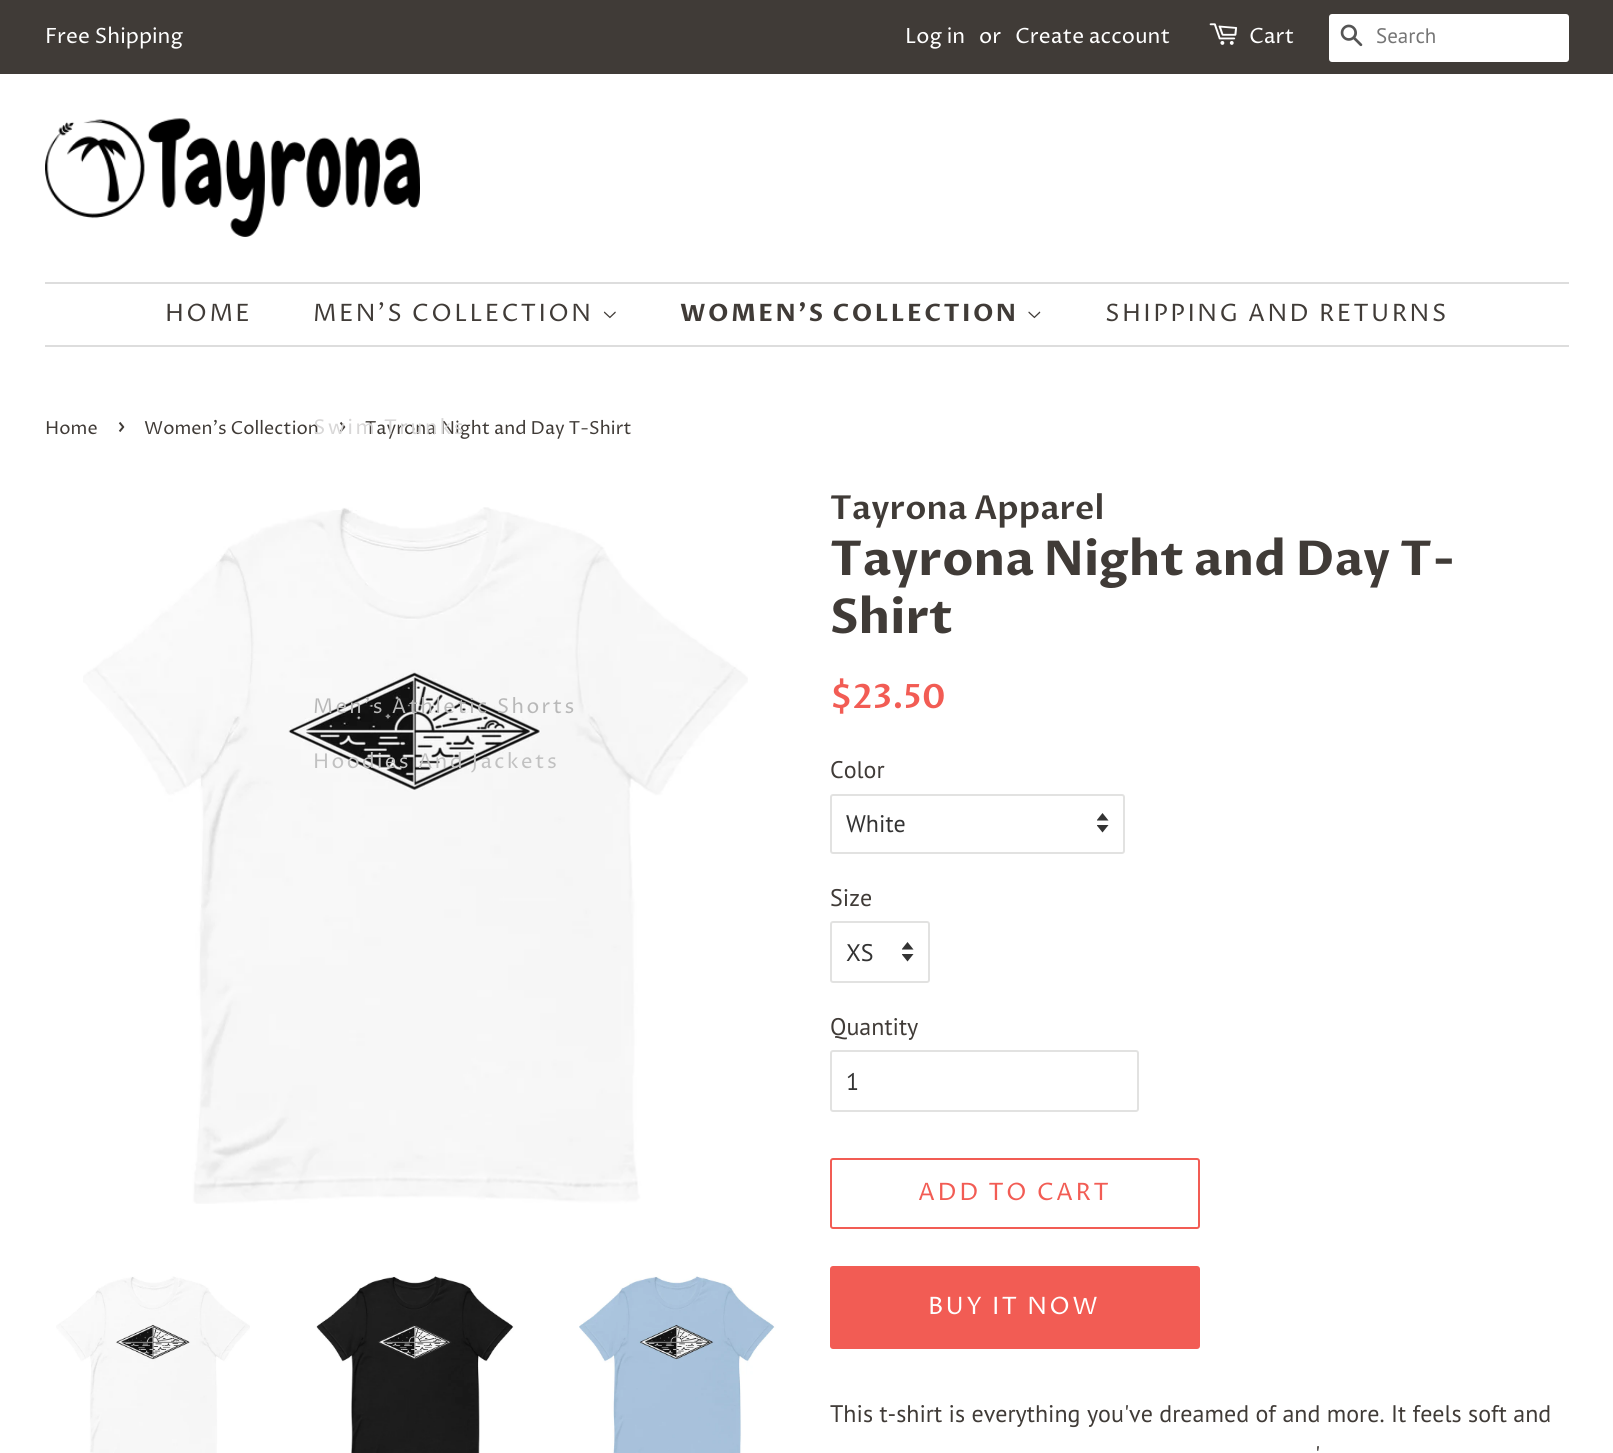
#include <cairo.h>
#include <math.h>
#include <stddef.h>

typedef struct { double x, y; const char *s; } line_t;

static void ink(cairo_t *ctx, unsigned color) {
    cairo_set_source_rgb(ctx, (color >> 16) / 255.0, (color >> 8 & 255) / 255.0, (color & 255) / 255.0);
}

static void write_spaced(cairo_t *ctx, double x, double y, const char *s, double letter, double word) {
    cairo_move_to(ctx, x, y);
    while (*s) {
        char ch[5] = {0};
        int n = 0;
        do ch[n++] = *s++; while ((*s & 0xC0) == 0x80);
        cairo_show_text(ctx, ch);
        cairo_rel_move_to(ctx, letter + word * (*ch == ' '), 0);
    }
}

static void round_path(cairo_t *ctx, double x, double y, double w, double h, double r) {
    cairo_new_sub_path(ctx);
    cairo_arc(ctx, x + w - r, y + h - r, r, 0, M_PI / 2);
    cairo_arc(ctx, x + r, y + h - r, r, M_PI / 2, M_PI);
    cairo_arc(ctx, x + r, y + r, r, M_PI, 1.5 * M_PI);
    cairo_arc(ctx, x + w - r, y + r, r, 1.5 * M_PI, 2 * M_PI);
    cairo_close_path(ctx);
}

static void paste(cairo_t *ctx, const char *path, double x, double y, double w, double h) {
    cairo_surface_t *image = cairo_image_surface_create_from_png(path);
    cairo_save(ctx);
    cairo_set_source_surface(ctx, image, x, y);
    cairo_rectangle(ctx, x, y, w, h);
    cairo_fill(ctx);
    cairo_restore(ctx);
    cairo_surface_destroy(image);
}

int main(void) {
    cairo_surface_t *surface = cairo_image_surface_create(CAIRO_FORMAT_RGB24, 1613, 1453);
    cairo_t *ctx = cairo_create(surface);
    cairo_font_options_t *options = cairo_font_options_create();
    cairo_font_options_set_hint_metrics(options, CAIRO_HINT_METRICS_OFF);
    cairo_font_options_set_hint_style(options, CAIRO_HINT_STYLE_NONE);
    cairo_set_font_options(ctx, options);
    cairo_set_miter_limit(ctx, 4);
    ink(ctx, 0xFFFFFF);
    cairo_paint(ctx);
    ink(ctx, 0x403B37);
    cairo_rectangle(ctx, 0, 0, 1613, 74);
    cairo_fill(ctx);
    cairo_select_font_face(ctx, "Proza Libre", CAIRO_FONT_SLANT_NORMAL, CAIRO_FONT_WEIGHT_NORMAL);
    cairo_set_font_size(ctx, 21);
    ink(ctx, 0xFFFFFF);
    {
        static const line_t items[] = {
            {45, 43, "Free Shipping"},
            {905, 43, "Log in"},
            {979, 43, "or"},
            {1015, 43, "Create account"},
        };
        for (size_t i = 0; i < sizeof items / sizeof *items; i++) {
            cairo_move_to(ctx, items[i].x, items[i].y);
            cairo_show_text(ctx, items[i].s);
        }
    }
    paste(ctx, "media/1.png", 1209, 23, 29, 22);
    cairo_move_to(ctx, 1249, 43);
    cairo_show_text(ctx, "Cart");
    round_path(ctx, 1329, 14, 240, 48, 3);
    cairo_fill(ctx);
    paste(ctx, "media/2.png", 1340, 24, 23, 23);
    cairo_select_font_face(ctx, "PT Sans", CAIRO_FONT_SLANT_NORMAL, CAIRO_FONT_WEIGHT_NORMAL);
    ink(ctx, 0x757575);
    cairo_move_to(ctx, 1376, 43);
    cairo_show_text(ctx, "Search");
    paste(ctx, "media/3.png", 45, 118, 375, 119);
    ink(ctx, 0xDDDDDD);
    cairo_rectangle(ctx, 45, 282, 1524, 2);
    cairo_fill(ctx);
    cairo_rectangle(ctx, 45, 345, 1524, 2);
    cairo_fill(ctx);
    cairo_select_font_face(ctx, "Proza Libre", CAIRO_FONT_SLANT_NORMAL, CAIRO_FONT_WEIGHT_NORMAL);
    cairo_set_font_size(ctx, 24);
    ink(ctx, 0x403B37);
    write_spaced(ctx, 165, 321, "HOME", 2.4, 0);
    write_spaced(ctx, 313, 321, "MEN'S COLLECTION", 2.4, 0);
    paste(ctx, "media/4.png", 603, 311, 13, 8);
    cairo_set_font_size(ctx, 18);
    cairo_move_to(ctx, 144, 434);
    cairo_show_text(ctx, "Women's Collection");
    cairo_set_font_size(ctx, 25);
    cairo_move_to(ctx, 338, 434);
    cairo_show_text(ctx, "›");
    cairo_set_font_size(ctx, 18);
    cairo_move_to(ctx, 365, 434);
    cairo_show_text(ctx, "Tayrona Night and Day T-Shirt");
    cairo_set_font_size(ctx, 20.4);
    ink(ctx, 0xD8D7D7);
    write_spaced(ctx, 313, 434, "Swim Trunks", 2.4, 0);
    paste(ctx, "media/6.png", 83, 507, 665, 697);
    ink(ctx, 0xB8B8B8);
    write_spaced(ctx, 313, 713, "Men's Athletic Shorts", 2.4, 0);
    ink(ctx, 0xC1C1C1);
    write_spaced(ctx, 313, 768, "Hoodies And Jackets", 2.4, 0);
    cairo_select_font_face(ctx, "Proza Libre", CAIRO_FONT_SLANT_NORMAL, CAIRO_FONT_WEIGHT_BOLD);
    cairo_set_font_size(ctx, 24);
    ink(ctx, 0x403B37);
    write_spaced(ctx, 680, 321, "WOMEN'S COLLECTION", 2.4, 0);
    paste(ctx, "media/5.png", 1028, 311, 13, 8);
    cairo_select_font_face(ctx, "Proza Libre", CAIRO_FONT_SLANT_NORMAL, CAIRO_FONT_WEIGHT_NORMAL);
    write_spaced(ctx, 1105, 321, "SHIPPING AND RETURNS", 2.4, 0);
    cairo_set_font_size(ctx, 18);
    cairo_move_to(ctx, 45, 434);
    cairo_show_text(ctx, "Home");
    cairo_set_font_size(ctx, 25);
    cairo_move_to(ctx, 117, 434);
    cairo_show_text(ctx, "›");
    paste(ctx, "media/7.png", 56, 1276, 194, 177);
    paste(ctx, "media/8.png", 316, 1276, 198, 177);
    paste(ctx, "media/9.png", 579, 1276, 197, 177);
    cairo_select_font_face(ctx, "Proza Libre SemiBold", CAIRO_FONT_SLANT_NORMAL, CAIRO_FONT_WEIGHT_NORMAL);
    cairo_set_font_size(ctx, 33);
    cairo_move_to(ctx, 830, 519);
    cairo_show_text(ctx, "Tayrona Apparel");
    cairo_select_font_face(ctx, "Proza Libre", CAIRO_FONT_SLANT_NORMAL, CAIRO_FONT_WEIGHT_BOLD);
    cairo_set_font_size(ctx, 48);
    cairo_move_to(ctx, 830, 575);
    cairo_show_text(ctx, "Tayrona Night and Day T-");
    cairo_move_to(ctx, 830, 633);
    cairo_show_text(ctx, "Shirt");
    cairo_select_font_face(ctx, "Proza Libre SemiBold", CAIRO_FONT_SLANT_NORMAL, CAIRO_FONT_WEIGHT_NORMAL);
    cairo_set_font_size(ctx, 33.5);
    ink(ctx, 0xF25C54);
    cairo_move_to(ctx, 830, 708);
    cairo_show_text(ctx, "$23.50");
    cairo_select_font_face(ctx, "PT Sans", CAIRO_FONT_SLANT_NORMAL, CAIRO_FONT_WEIGHT_NORMAL);
    cairo_set_font_size(ctx, 24);
    ink(ctx, 0x403B37);
    cairo_move_to(ctx, 830, 778);
    cairo_show_text(ctx, "Color");
    paste(ctx, "media/10.png", 1097, 813, 12, 20);
    round_path(ctx, 831, 795, 293, 58, 2);
    ink(ctx, 0xE2E2E1);
    cairo_stroke(ctx);
    ink(ctx, 0x333333);
    cairo_move_to(ctx, 846, 832);
    cairo_show_text(ctx, "White");
    ink(ctx, 0x403B37);
    cairo_move_to(ctx, 830, 906);
    cairo_show_text(ctx, "Size");
    paste(ctx, "media/10.png", 902, 942, 12, 20);
    round_path(ctx, 831, 922, 98, 60, 2);
    ink(ctx, 0xE2E2E1);
    cairo_stroke(ctx);
    ink(ctx, 0x333333);
    cairo_move_to(ctx, 846, 961);
    cairo_show_text(ctx, "XS");
    ink(ctx, 0x403B37);
    cairo_move_to(ctx, 830, 1035);
    cairo_show_text(ctx, "Quantity");
    round_path(ctx, 831, 1051, 307, 60, 2);
    ink(ctx, 0xE2E2E1);
    cairo_stroke(ctx);
    ink(ctx, 0x333333);
    cairo_move_to(ctx, 846, 1090);
    cairo_show_text(ctx, "1");
    round_path(ctx, 831, 1159, 368, 69, 2);
    ink(ctx, 0xF25C54);
    cairo_stroke(ctx);
    cairo_select_font_face(ctx, "Proza Libre", CAIRO_FONT_SLANT_NORMAL, CAIRO_FONT_WEIGHT_NORMAL);
    write_spaced(ctx, 918, 1200, "ADD TO CART", 2.4, 0);
    round_path(ctx, 830, 1266, 370, 83, 3);
    cairo_fill(ctx);
    ink(ctx, 0xFFFFFF);
    write_spaced(ctx, 928, 1314, "BUY IT NOW", 2.4, 0);
    cairo_select_font_face(ctx, "PT Sans", CAIRO_FONT_SLANT_NORMAL, CAIRO_FONT_WEIGHT_NORMAL);
    ink(ctx, 0x403B37);
    cairo_move_to(ctx, 830, 1422);
    cairo_show_text(ctx, "This t-shirt is everything you've dreamed of and more. It feels soft and");
    cairo_move_to(ctx, 1315, 1463);
    cairo_show_text(ctx, "'");
    cairo_surface_write_to_png(surface, "image.png");
    cairo_font_options_destroy(options);
    cairo_destroy(ctx);
    cairo_surface_destroy(surface);
    return 0;
}
